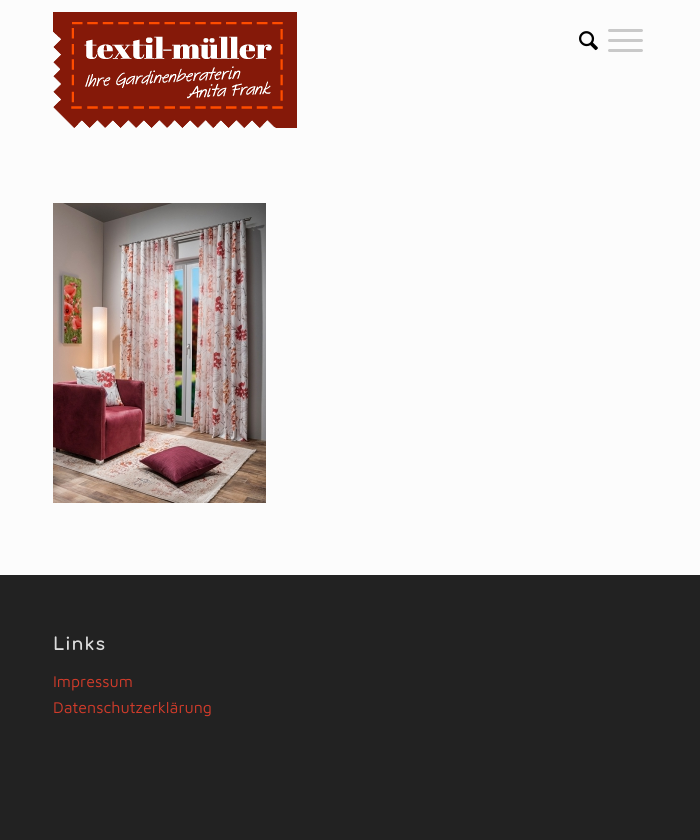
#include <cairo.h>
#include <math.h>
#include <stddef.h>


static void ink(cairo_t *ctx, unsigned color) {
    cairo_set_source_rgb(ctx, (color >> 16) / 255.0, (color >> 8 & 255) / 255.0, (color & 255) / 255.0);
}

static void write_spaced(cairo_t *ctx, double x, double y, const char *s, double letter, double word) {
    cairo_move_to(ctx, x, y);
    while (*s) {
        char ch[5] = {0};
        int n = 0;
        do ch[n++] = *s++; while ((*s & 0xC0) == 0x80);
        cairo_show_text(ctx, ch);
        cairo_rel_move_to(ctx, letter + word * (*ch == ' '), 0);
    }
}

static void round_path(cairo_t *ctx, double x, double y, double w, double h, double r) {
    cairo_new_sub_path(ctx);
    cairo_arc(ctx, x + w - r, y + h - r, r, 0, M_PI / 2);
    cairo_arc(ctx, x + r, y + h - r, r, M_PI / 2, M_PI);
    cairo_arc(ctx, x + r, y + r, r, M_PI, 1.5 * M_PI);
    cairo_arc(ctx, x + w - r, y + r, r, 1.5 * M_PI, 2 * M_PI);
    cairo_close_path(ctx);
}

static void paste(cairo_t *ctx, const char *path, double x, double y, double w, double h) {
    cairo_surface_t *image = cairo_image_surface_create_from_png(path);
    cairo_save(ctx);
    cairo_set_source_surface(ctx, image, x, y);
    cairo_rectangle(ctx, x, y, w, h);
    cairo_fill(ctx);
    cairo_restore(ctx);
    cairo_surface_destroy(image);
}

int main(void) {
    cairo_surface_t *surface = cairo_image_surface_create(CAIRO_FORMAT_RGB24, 700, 840);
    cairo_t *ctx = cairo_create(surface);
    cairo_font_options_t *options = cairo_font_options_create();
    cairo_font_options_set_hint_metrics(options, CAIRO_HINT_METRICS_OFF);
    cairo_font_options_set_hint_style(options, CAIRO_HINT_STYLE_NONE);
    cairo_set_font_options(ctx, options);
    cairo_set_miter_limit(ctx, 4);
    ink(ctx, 0xFCFCFC);
    cairo_paint(ctx);
    paste(ctx, "media/1.png", 53, 12, 244, 116);
    paste(ctx, "media/2.png", 579, 31, 19, 20);
    ink(ctx, 0xC9C9C9);
    round_path(ctx, 608, 39, 35, 3, 1.5);
    cairo_fill(ctx);
    round_path(ctx, 608, 29, 35, 3, 1.5);
    cairo_fill(ctx);
    round_path(ctx, 608, 49, 35, 3, 1.5);
    cairo_fill(ctx);
    paste(ctx, "media/3.png", 53, 203, 213, 300);
    ink(ctx, 0x222222);
    cairo_rectangle(ctx, 0, 575, 700, 265);
    cairo_fill(ctx);
    cairo_select_font_face(ctx, "Comfortaa", CAIRO_FONT_SLANT_NORMAL, CAIRO_FONT_WEIGHT_BOLD);
    cairo_set_font_size(ctx, 17.5);
    ink(ctx, 0xDCDCDC);
    write_spaced(ctx, 53, 650, "Links", 1, 0);
    cairo_select_font_face(ctx, "Maven Pro", CAIRO_FONT_SLANT_NORMAL, CAIRO_FONT_WEIGHT_NORMAL);
    cairo_set_font_size(ctx, 16);
    ink(ctx, 0xD13B2A);
    cairo_move_to(ctx, 53, 687);
    cairo_show_text(ctx, "Impressum");
    cairo_move_to(ctx, 53, 713);
    cairo_show_text(ctx, "Datenschutzerklärung");
    cairo_surface_write_to_png(surface, "image.png");
    cairo_font_options_destroy(options);
    cairo_destroy(ctx);
    cairo_surface_destroy(surface);
    return 0;
}
